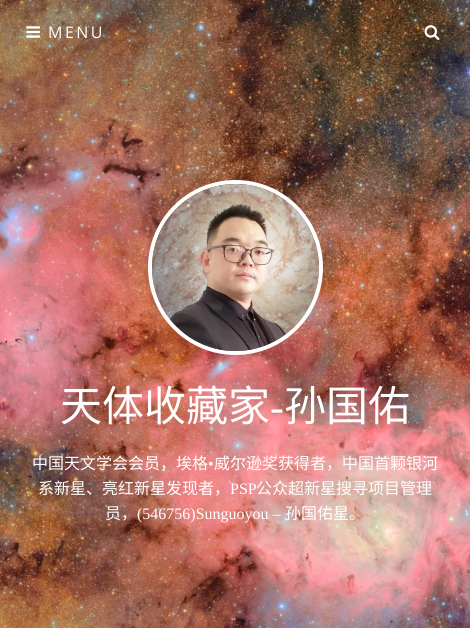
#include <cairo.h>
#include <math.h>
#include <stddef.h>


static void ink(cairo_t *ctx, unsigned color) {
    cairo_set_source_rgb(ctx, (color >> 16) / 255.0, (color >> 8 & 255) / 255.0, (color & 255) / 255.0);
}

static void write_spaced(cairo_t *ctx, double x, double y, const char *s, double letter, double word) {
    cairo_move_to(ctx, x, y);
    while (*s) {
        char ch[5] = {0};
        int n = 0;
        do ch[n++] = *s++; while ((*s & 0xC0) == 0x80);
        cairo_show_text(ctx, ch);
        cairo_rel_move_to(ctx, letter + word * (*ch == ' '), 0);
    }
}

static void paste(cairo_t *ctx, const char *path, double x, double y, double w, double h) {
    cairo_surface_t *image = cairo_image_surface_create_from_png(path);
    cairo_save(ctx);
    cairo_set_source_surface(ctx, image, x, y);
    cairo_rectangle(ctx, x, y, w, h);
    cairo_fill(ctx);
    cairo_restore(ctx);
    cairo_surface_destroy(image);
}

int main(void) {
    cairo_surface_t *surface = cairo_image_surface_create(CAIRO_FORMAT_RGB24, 470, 628);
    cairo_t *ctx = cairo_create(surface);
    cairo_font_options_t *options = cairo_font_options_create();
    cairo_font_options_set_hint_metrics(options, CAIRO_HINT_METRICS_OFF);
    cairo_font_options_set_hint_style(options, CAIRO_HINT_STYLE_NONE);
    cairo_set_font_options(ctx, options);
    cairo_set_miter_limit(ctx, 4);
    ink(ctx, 0xFFFFFF);
    cairo_paint(ctx);
    paste(ctx, "media/3.png", 0, 0, 470, 628);
    paste(ctx, "media/1.png", 26, 26, 14, 12);
    cairo_select_font_face(ctx, "Open Sans", CAIRO_FONT_SLANT_NORMAL, CAIRO_FONT_WEIGHT_NORMAL);
    cairo_set_font_size(ctx, 16);
    ink(ctx, 0xFFFFFF);
    write_spaced(ctx, 48, 38, "MENU", 2.5, 0);
    paste(ctx, "media/2.png", 424, 25, 16, 15);
    cairo_arc(ctx, 235.5, 267.5, 85.5, 0, 2 * M_PI);
    cairo_set_line_width(ctx, 4);
    cairo_stroke(ctx);
    paste(ctx, "media/4.png", 152, 184, 167, 167);
    cairo_select_font_face(ctx, "Noto Sans CJK SC", CAIRO_FONT_SLANT_NORMAL, CAIRO_FONT_WEIGHT_NORMAL);
    cairo_set_font_size(ctx, 42);
    cairo_move_to(ctx, 60, 421);
    cairo_show_text(ctx, "天体收藏家");
    cairo_select_font_face(ctx, "Liberation Serif", CAIRO_FONT_SLANT_NORMAL, CAIRO_FONT_WEIGHT_NORMAL);
    cairo_move_to(ctx, 270, 421);
    cairo_show_text(ctx, "-");
    cairo_select_font_face(ctx, "Noto Sans CJK SC", CAIRO_FONT_SLANT_NORMAL, CAIRO_FONT_WEIGHT_NORMAL);
    cairo_move_to(ctx, 284, 421);
    cairo_show_text(ctx, "孙国佑");
    cairo_set_font_size(ctx, 16);
    cairo_move_to(ctx, 32, 469);
    cairo_show_text(ctx, "中国天文学会会员，埃格");
    cairo_select_font_face(ctx, "Liberation Serif", CAIRO_FONT_SLANT_NORMAL, CAIRO_FONT_WEIGHT_NORMAL);
    cairo_move_to(ctx, 208, 469);
    cairo_show_text(ctx, "•");
    cairo_select_font_face(ctx, "Noto Sans CJK SC", CAIRO_FONT_SLANT_NORMAL, CAIRO_FONT_WEIGHT_NORMAL);
    cairo_move_to(ctx, 214, 469);
    cairo_show_text(ctx, "威尔逊奖获得者，中国首颗银河");
    cairo_move_to(ctx, 38, 494);
    cairo_show_text(ctx, "系新星、亮红新星发现者，");
    cairo_select_font_face(ctx, "Liberation Serif", CAIRO_FONT_SLANT_NORMAL, CAIRO_FONT_WEIGHT_NORMAL);
    cairo_move_to(ctx, 230, 494);
    cairo_show_text(ctx, "PSP");
    cairo_select_font_face(ctx, "Noto Sans CJK SC", CAIRO_FONT_SLANT_NORMAL, CAIRO_FONT_WEIGHT_NORMAL);
    cairo_move_to(ctx, 256, 494);
    cairo_show_text(ctx, "公众超新星搜寻项目管理");
    cairo_move_to(ctx, 105, 519);
    cairo_show_text(ctx, "员，");
    cairo_select_font_face(ctx, "Liberation Serif", CAIRO_FONT_SLANT_NORMAL, CAIRO_FONT_WEIGHT_NORMAL);
    cairo_move_to(ctx, 137, 519);
    cairo_show_text(ctx, "(546756)Sunguoyou –");
    cairo_select_font_face(ctx, "Noto Sans CJK SC", CAIRO_FONT_SLANT_NORMAL, CAIRO_FONT_WEIGHT_NORMAL);
    cairo_move_to(ctx, 285, 519);
    cairo_show_text(ctx, "孙国佑星。");
    cairo_surface_write_to_png(surface, "image.png");
    cairo_font_options_destroy(options);
    cairo_destroy(ctx);
    cairo_surface_destroy(surface);
    return 0;
}
